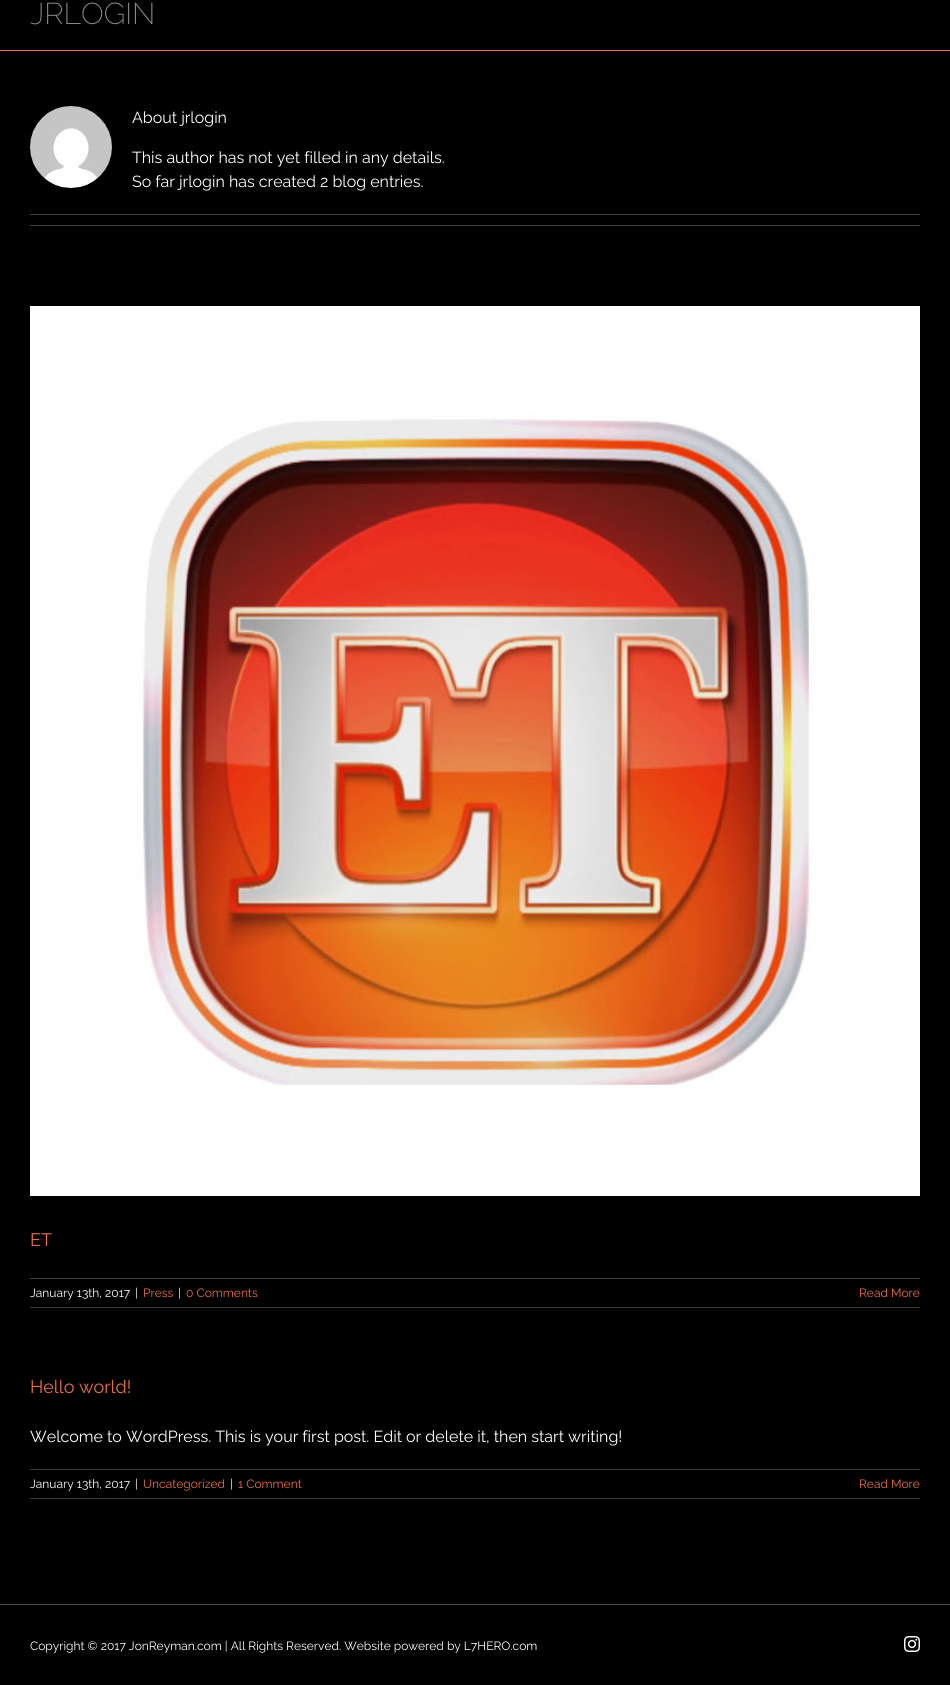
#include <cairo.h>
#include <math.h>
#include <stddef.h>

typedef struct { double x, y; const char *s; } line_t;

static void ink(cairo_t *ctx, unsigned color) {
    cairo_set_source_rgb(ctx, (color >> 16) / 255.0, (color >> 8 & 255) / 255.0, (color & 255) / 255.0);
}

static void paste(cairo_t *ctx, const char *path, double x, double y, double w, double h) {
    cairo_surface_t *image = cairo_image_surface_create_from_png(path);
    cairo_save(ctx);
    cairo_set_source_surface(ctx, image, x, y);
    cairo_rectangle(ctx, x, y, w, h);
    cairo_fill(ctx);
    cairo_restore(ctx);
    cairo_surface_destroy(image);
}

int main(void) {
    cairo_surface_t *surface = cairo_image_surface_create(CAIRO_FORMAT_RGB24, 950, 1685);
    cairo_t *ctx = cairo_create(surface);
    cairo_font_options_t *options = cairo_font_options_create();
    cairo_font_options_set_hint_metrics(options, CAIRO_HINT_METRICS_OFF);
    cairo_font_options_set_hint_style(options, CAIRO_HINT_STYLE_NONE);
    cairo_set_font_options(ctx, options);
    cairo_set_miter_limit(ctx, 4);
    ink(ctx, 0x000000);
    cairo_paint(ctx);
    ink(ctx, 0xE9704A);
    cairo_rectangle(ctx, 0, 50, 950, 1);
    cairo_fill(ctx);
    cairo_select_font_face(ctx, "Raleway ExtraLight", CAIRO_FONT_SLANT_NORMAL, CAIRO_FONT_WEIGHT_NORMAL);
    cairo_set_font_size(ctx, 30);
    ink(ctx, 0x909090);
    cairo_move_to(ctx, 30, 24);
    cairo_show_text(ctx, "JRLOGIN");
    paste(ctx, "media/1.png", 30, 106, 82, 82);
    cairo_select_font_face(ctx, "Raleway", CAIRO_FONT_SLANT_NORMAL, CAIRO_FONT_WEIGHT_NORMAL);
    cairo_set_font_size(ctx, 16);
    ink(ctx, 0xFFFFFF);
    {
        static const line_t items[] = {
            {132, 123, "About jrlogin"},
            {132, 163, "This author has not yet filled in any details."},
            {132, 187, "So far jrlogin has created 2 blog entries."},
        };
        for (size_t i = 0; i < sizeof items / sizeof *items; i++) {
            cairo_move_to(ctx, items[i].x, items[i].y);
            cairo_show_text(ctx, items[i].s);
        }
    }
    ink(ctx, 0x3E3E3E);
    cairo_rectangle(ctx, 30, 214, 890, 1);
    cairo_fill(ctx);
    cairo_rectangle(ctx, 30, 225, 890, 1);
    cairo_fill(ctx);
    paste(ctx, "media/2.png", 30, 306, 890, 890);
    cairo_set_font_size(ctx, 18);
    ink(ctx, 0xE9704A);
    cairo_move_to(ctx, 30, 1246);
    cairo_show_text(ctx, "ET");
    ink(ctx, 0x3E3E3E);
    cairo_rectangle(ctx, 30, 1278, 890, 1);
    cairo_fill(ctx);
    cairo_rectangle(ctx, 30, 1307, 890, 1);
    cairo_fill(ctx);
    cairo_set_font_size(ctx, 12);
    ink(ctx, 0xFFFFFF);
    cairo_move_to(ctx, 30, 1297);
    cairo_show_text(ctx, "January 13th, 2017");
    cairo_move_to(ctx, 135, 1297);
    cairo_show_text(ctx, "|");
    ink(ctx, 0xE9704A);
    cairo_move_to(ctx, 143, 1297);
    cairo_show_text(ctx, "Press");
    ink(ctx, 0xFFFFFF);
    cairo_move_to(ctx, 178, 1297);
    cairo_show_text(ctx, "|");
    ink(ctx, 0xE9704A);
    cairo_move_to(ctx, 186, 1297);
    cairo_show_text(ctx, "0 Comments");
    cairo_move_to(ctx, 859, 1297);
    cairo_show_text(ctx, "Read More");
    cairo_set_font_size(ctx, 18);
    cairo_move_to(ctx, 30, 1393);
    cairo_show_text(ctx, "Hello world!");
    cairo_set_font_size(ctx, 16);
    ink(ctx, 0xFFFFFF);
    cairo_move_to(ctx, 30, 1442);
    cairo_show_text(ctx, "Welcome to WordPress. This is your first post. Edit or delete it, then start writing!");
    ink(ctx, 0x3E3E3E);
    cairo_rectangle(ctx, 30, 1469, 890, 1);
    cairo_fill(ctx);
    cairo_rectangle(ctx, 30, 1498, 890, 1);
    cairo_fill(ctx);
    cairo_set_font_size(ctx, 12);
    ink(ctx, 0xFFFFFF);
    cairo_move_to(ctx, 30, 1488);
    cairo_show_text(ctx, "January 13th, 2017");
    cairo_move_to(ctx, 135, 1488);
    cairo_show_text(ctx, "|");
    ink(ctx, 0xE9704A);
    cairo_move_to(ctx, 143, 1488);
    cairo_show_text(ctx, "Uncategorized");
    ink(ctx, 0xFFFFFF);
    cairo_move_to(ctx, 230, 1488);
    cairo_show_text(ctx, "|");
    ink(ctx, 0xE9704A);
    cairo_move_to(ctx, 238, 1488);
    cairo_show_text(ctx, "1 Comment");
    cairo_move_to(ctx, 859, 1488);
    cairo_show_text(ctx, "Read More");
    ink(ctx, 0x4B4C4D);
    cairo_rectangle(ctx, 0, 1604, 950, 1);
    cairo_fill(ctx);
    ink(ctx, 0xFFFFFF);
    cairo_move_to(ctx, 30, 1650);
    cairo_show_text(ctx, "Copyright © 2017 JonReyman.com | All Rights Reserved. Website powered by L7HERO.com");
    paste(ctx, "media/3.png", 904, 1636, 16, 16);
    cairo_surface_write_to_png(surface, "image.png");
    cairo_font_options_destroy(options);
    cairo_destroy(ctx);
    cairo_surface_destroy(surface);
    return 0;
}
